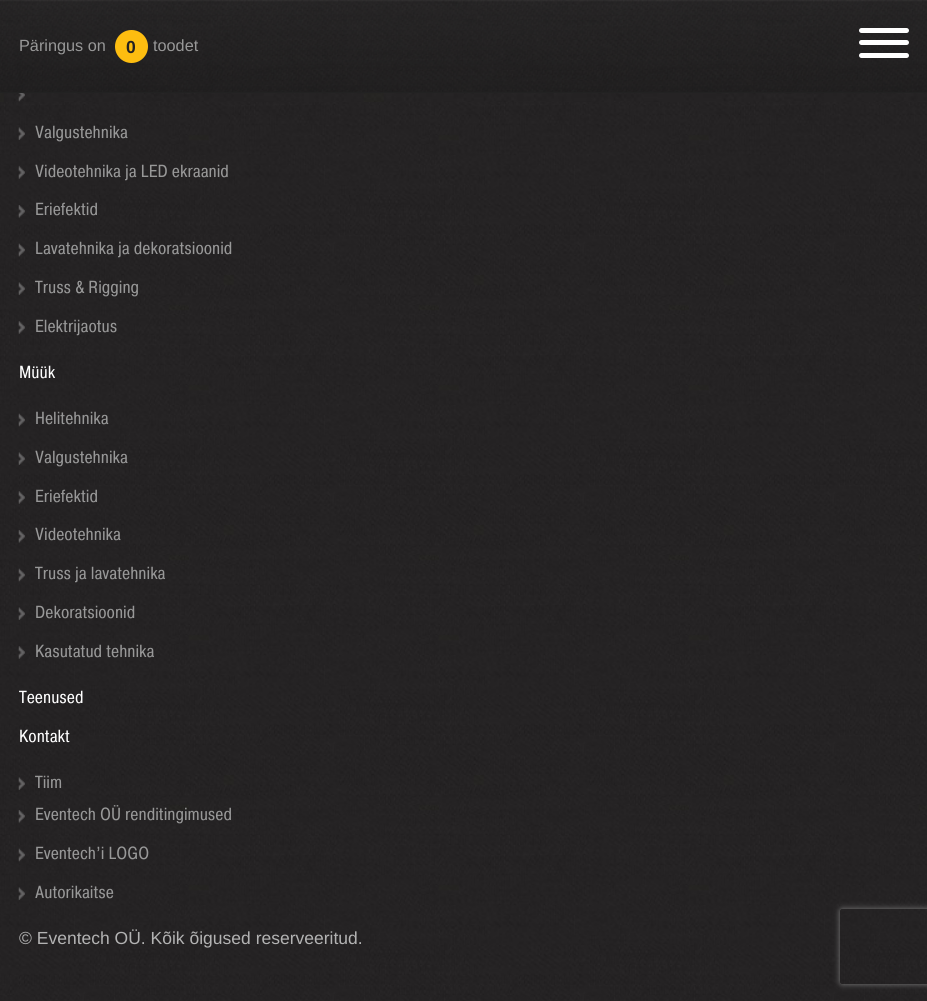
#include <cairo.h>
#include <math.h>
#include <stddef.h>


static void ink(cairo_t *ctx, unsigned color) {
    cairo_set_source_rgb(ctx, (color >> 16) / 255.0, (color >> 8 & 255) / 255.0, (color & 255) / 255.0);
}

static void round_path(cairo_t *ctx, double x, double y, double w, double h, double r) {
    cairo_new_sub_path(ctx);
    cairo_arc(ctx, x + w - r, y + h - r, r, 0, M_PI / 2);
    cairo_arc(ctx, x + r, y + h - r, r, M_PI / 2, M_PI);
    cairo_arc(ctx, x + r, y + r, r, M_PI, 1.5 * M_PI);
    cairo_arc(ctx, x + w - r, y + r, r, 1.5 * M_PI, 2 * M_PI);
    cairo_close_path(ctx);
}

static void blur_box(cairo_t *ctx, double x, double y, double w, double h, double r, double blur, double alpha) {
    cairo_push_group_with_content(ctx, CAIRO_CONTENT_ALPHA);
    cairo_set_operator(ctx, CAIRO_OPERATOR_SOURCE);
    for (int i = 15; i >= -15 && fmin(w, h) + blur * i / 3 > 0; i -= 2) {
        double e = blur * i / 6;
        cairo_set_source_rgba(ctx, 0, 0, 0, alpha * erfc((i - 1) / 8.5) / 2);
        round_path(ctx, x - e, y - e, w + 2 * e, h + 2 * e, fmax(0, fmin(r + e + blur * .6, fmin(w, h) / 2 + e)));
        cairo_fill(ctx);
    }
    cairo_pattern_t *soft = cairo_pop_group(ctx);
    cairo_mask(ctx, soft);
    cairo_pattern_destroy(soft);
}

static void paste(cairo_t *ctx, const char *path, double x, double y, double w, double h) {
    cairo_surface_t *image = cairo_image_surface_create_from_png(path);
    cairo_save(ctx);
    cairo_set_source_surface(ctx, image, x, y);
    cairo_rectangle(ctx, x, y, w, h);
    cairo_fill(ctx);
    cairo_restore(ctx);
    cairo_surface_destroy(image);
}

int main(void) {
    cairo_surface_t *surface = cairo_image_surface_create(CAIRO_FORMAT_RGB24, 927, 1001);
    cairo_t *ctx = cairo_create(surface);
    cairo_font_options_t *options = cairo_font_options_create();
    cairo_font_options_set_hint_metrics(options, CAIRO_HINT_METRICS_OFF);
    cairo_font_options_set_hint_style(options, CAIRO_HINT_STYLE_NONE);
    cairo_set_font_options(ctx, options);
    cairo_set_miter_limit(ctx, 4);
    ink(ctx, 0xFFFFFF);
    cairo_paint(ctx);
    paste(ctx, "media/1.png", 0, 102, 927, 899);
    ink(ctx, 0x222222);
    cairo_rectangle(ctx, 0, 92, 927, 1);
    cairo_fill(ctx);
    paste(ctx, "media/2.png", 0, 0, 927, 92);
    cairo_select_font_face(ctx, "Liberation Sans", CAIRO_FONT_SLANT_NORMAL, CAIRO_FONT_WEIGHT_NORMAL);
    cairo_set_font_size(ctx, 16.25);
    ink(ctx, 0x989898);
    cairo_move_to(ctx, 19, 51);
    cairo_show_text(ctx, "Päringus on");
    ink(ctx, 0xFDBD10);
    cairo_new_path(ctx);
    cairo_arc(ctx, 131.5, 46.5, 16.5, 0, 2 * M_PI);
    cairo_fill(ctx);
    cairo_select_font_face(ctx, "Liberation Sans", CAIRO_FONT_SLANT_NORMAL, CAIRO_FONT_WEIGHT_BOLD);
    cairo_set_font_size(ctx, 17.5);
    ink(ctx, 0x232121);
    cairo_move_to(ctx, 126, 53);
    cairo_show_text(ctx, "0");
    cairo_select_font_face(ctx, "Liberation Sans", CAIRO_FONT_SLANT_NORMAL, CAIRO_FONT_WEIGHT_NORMAL);
    cairo_set_font_size(ctx, 16.25);
    ink(ctx, 0x989898);
    cairo_move_to(ctx, 153, 51);
    cairo_show_text(ctx, "toodet");
    ink(ctx, 0xFFFFFF);
    round_path(ctx, 859, 53, 50, 5, 2.5);
    cairo_fill(ctx);
    round_path(ctx, 859, 28, 50, 5, 2.5);
    cairo_fill(ctx);
    round_path(ctx, 859, 40, 50, 5, 2.5);
    cairo_fill(ctx);
    paste(ctx, "media/3.png", 0, 93, 927, 9);
    paste(ctx, "media/4.png", 18, 93, 7, 9);
    paste(ctx, "media/5.png", 18, 127, 7, 13);
    cairo_select_font_face(ctx, "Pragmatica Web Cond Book", CAIRO_FONT_SLANT_NORMAL, CAIRO_FONT_WEIGHT_NORMAL);
    cairo_set_font_size(ctx, 17.5);
    ink(ctx, 0x989898);
    cairo_move_to(ctx, 35, 138);
    cairo_show_text(ctx, "Valgustehnika");
    paste(ctx, "media/6.png", 18, 166, 7, 13);
    cairo_move_to(ctx, 35, 177);
    cairo_show_text(ctx, "Videotehnika ja LED ekraanid");
    paste(ctx, "media/7.png", 18, 205, 7, 13);
    cairo_move_to(ctx, 35, 215);
    cairo_show_text(ctx, "Eriefektid");
    paste(ctx, "media/8.png", 18, 243, 7, 14);
    cairo_move_to(ctx, 35, 254);
    cairo_show_text(ctx, "Lavatehnika ja dekoratsioonid");
    paste(ctx, "media/9.png", 18, 282, 7, 13);
    cairo_move_to(ctx, 35, 293);
    cairo_show_text(ctx, "Truss & Rigging");
    paste(ctx, "media/10.png", 18, 321, 7, 13);
    cairo_move_to(ctx, 35, 332);
    cairo_show_text(ctx, "Elektrijaotus");
    ink(ctx, 0xFFFFFF);
    cairo_move_to(ctx, 19, 378);
    cairo_show_text(ctx, "Müük");
    paste(ctx, "media/11.png", 18, 413, 7, 14);
    ink(ctx, 0x989898);
    cairo_move_to(ctx, 35, 424);
    cairo_show_text(ctx, "Helitehnika");
    paste(ctx, "media/12.png", 18, 452, 7, 13);
    cairo_move_to(ctx, 35, 463);
    cairo_show_text(ctx, "Valgustehnika");
    paste(ctx, "media/13.png", 18, 491, 7, 13);
    cairo_move_to(ctx, 35, 502);
    cairo_show_text(ctx, "Eriefektid");
    paste(ctx, "media/14.png", 18, 530, 7, 13);
    cairo_move_to(ctx, 35, 540);
    cairo_show_text(ctx, "Videotehnika");
    paste(ctx, "media/15.png", 18, 568, 7, 14);
    cairo_move_to(ctx, 35, 579);
    cairo_show_text(ctx, "Truss ja lavatehnika");
    paste(ctx, "media/16.png", 18, 607, 7, 13);
    cairo_move_to(ctx, 35, 618);
    cairo_show_text(ctx, "Dekoratsioonid");
    paste(ctx, "media/17.png", 18, 646, 7, 13);
    cairo_move_to(ctx, 35, 657);
    cairo_show_text(ctx, "Kasutatud tehnika");
    ink(ctx, 0xFFFFFF);
    cairo_move_to(ctx, 19, 703);
    cairo_show_text(ctx, "Teenused");
    cairo_move_to(ctx, 19, 742);
    cairo_show_text(ctx, "Kontakt");
    paste(ctx, "media/18.png", 18, 777, 7, 13);
    ink(ctx, 0x989898);
    cairo_move_to(ctx, 35, 788);
    cairo_show_text(ctx, "Tiim");
    paste(ctx, "media/19.png", 18, 810, 7, 13);
    cairo_move_to(ctx, 35, 820);
    cairo_show_text(ctx, "Eventech OÜ renditingimused");
    paste(ctx, "media/20.png", 18, 848, 7, 14);
    cairo_move_to(ctx, 35, 859);
    cairo_show_text(ctx, "Eventech’i LOGO");
    paste(ctx, "media/21.png", 18, 887, 7, 13);
    cairo_move_to(ctx, 35, 898);
    cairo_show_text(ctx, "Autorikaitse");
    cairo_select_font_face(ctx, "Liberation Sans", CAIRO_FONT_SLANT_NORMAL, CAIRO_FONT_WEIGHT_NORMAL);
    ink(ctx, 0xB3B3B3);
    cairo_move_to(ctx, 19, 944);
    cairo_show_text(ctx, "© Eventech OÜ. Kõik õigused reserveeritud.");
    cairo_save(ctx);
    cairo_set_fill_rule(ctx, CAIRO_FILL_RULE_EVEN_ODD);
    cairo_new_path(ctx);
    cairo_move_to(ctx, 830, 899);
    cairo_line_to(ctx, 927, 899);
    cairo_line_to(ctx, 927, 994);
    cairo_line_to(ctx, 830, 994);
    cairo_close_path(ctx);
    cairo_move_to(ctx, 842.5, 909);
    cairo_line_to(ctx, 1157.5, 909);
    cairo_curve_to(ctx, 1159, 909, 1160, 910, 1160, 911.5);
    cairo_line_to(ctx, 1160, 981.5);
    cairo_curve_to(ctx, 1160, 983, 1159, 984, 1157.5, 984);
    cairo_line_to(ctx, 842.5, 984);
    cairo_curve_to(ctx, 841, 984, 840, 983, 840, 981.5);
    cairo_line_to(ctx, 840, 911.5);
    cairo_curve_to(ctx, 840, 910, 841, 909, 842.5, 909);
    cairo_close_path(ctx);
    cairo_clip(ctx);
    ink(ctx, 0x808080);
    blur_box(ctx, 840, 909, 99, 75, 2.5, 3, 1);
    cairo_restore(ctx);
    cairo_surface_write_to_png(surface, "image.png");
    cairo_font_options_destroy(options);
    cairo_destroy(ctx);
    cairo_surface_destroy(surface);
    return 0;
}
